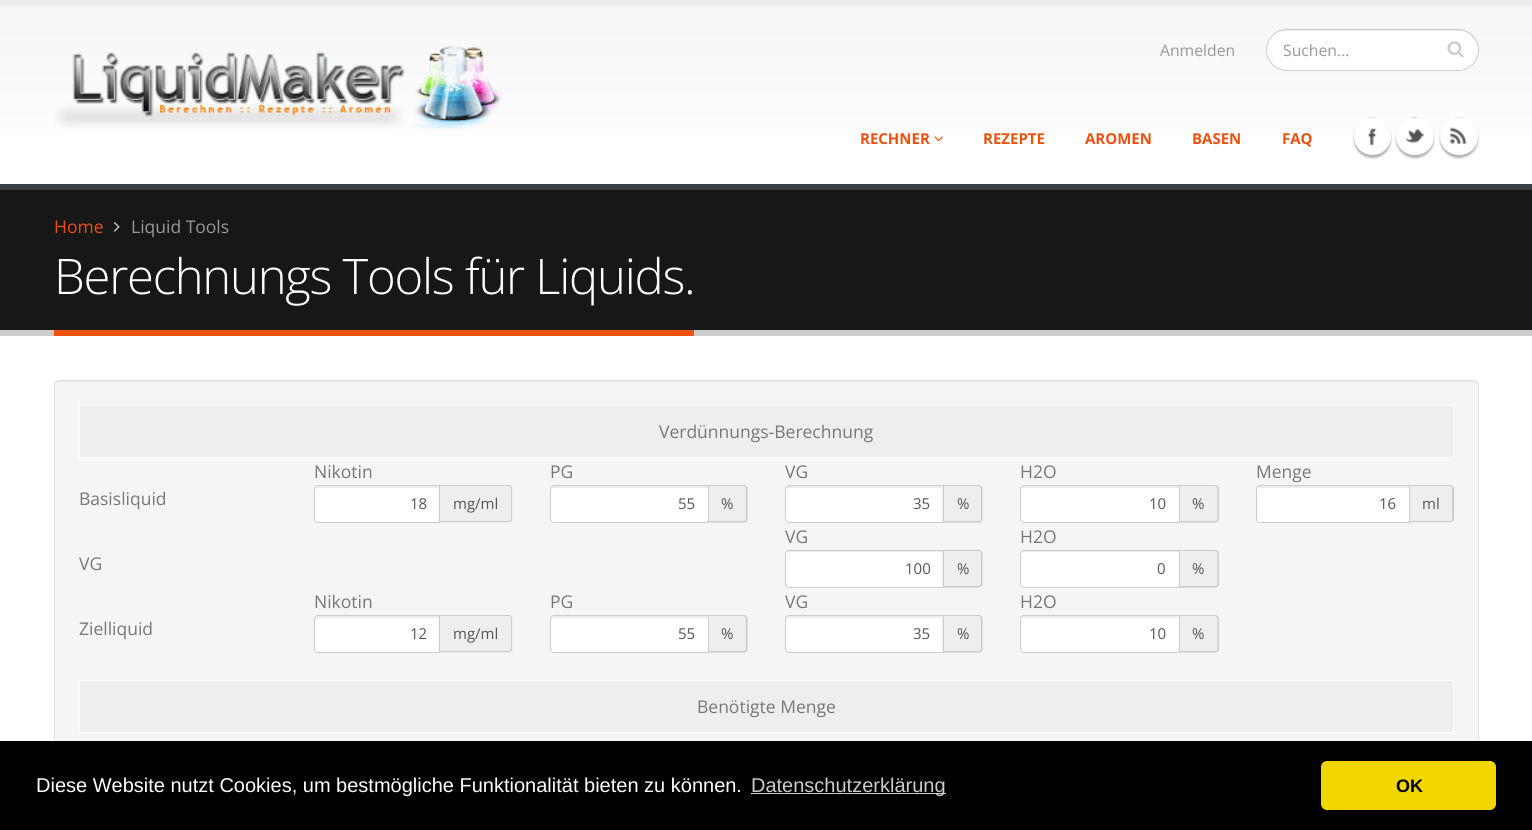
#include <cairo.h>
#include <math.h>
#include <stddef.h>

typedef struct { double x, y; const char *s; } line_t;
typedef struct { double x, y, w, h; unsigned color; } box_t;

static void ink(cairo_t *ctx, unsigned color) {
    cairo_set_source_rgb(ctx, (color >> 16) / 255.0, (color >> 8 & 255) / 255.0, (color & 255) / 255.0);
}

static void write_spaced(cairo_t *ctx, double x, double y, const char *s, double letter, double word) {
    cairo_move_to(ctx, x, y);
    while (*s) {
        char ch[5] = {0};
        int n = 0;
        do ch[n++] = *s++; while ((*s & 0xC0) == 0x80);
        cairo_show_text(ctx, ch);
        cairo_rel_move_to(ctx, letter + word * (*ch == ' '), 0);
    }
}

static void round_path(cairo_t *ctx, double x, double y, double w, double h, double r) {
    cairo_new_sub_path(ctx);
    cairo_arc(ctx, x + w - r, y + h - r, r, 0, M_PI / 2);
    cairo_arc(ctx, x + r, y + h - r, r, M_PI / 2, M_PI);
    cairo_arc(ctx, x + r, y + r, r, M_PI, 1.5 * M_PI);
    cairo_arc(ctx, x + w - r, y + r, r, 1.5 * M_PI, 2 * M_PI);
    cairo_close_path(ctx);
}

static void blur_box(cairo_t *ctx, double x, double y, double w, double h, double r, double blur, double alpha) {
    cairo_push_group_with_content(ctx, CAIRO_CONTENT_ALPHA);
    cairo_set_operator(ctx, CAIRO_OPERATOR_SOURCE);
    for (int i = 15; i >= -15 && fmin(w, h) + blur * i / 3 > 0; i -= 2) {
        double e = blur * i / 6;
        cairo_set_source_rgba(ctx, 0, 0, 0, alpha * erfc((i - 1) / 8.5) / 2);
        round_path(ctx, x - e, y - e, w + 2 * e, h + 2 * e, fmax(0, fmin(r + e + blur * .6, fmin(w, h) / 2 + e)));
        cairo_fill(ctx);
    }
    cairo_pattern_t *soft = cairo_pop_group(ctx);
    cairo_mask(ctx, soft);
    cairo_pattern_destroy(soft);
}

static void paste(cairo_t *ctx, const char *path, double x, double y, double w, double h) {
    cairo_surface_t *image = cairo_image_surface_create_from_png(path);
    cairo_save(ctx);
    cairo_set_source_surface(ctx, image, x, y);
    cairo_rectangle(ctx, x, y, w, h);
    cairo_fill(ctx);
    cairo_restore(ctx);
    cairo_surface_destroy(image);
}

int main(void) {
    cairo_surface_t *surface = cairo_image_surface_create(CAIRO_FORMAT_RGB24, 1532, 830);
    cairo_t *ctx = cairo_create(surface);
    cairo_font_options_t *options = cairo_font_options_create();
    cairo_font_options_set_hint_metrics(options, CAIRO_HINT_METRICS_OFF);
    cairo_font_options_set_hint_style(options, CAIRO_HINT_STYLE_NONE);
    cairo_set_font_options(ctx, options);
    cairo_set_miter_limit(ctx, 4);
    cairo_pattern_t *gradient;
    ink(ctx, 0xFFFFFF);
    cairo_paint(ctx);
    gradient = cairo_pattern_create_linear(766, 6.2, 766, 184);
    cairo_pattern_add_color_stop_rgba(gradient, 0, 0.965, 0.965, 0.965, 1);
    cairo_pattern_add_color_stop_rgba(gradient, 1, 1, 1, 1, 1);
    cairo_set_source(ctx, gradient);
    cairo_pattern_destroy(gradient);
    cairo_rectangle(ctx, 0, 6, 1532, 129);
    cairo_fill(ctx);
    ink(ctx, 0xEDEDED);
    cairo_rectangle(ctx, 0, 0, 1532, 6);
    cairo_fill(ctx);
    paste(ctx, "media/1.png", 55, 46, 448, 83);
    cairo_select_font_face(ctx, "Open Sans", CAIRO_FONT_SLANT_NORMAL, CAIRO_FONT_WEIGHT_NORMAL);
    cairo_set_font_size(ctx, 15.75);
    ink(ctx, 0x999999);
    cairo_move_to(ctx, 1160, 56);
    cairo_show_text(ctx, "Anmelden");
    ink(ctx, 0xFFFFFF);
    round_path(ctx, 1266, 29, 213, 42, 21);
    cairo_fill(ctx);
    ink(ctx, 0xECECEC);
    cairo_new_path(ctx);
    cairo_move_to(ctx, 1288, 31);
    cairo_line_to(ctx, 1458, 31);
    cairo_curve_to(ctx, 1469, 31, 1478, 40, 1478, 51);
    cairo_line_to(ctx, 1478, 50);
    cairo_curve_to(ctx, 1478, 39, 1469, 30, 1458, 30);
    cairo_line_to(ctx, 1288, 30);
    cairo_curve_to(ctx, 1277, 30, 1268, 39, 1268, 50);
    cairo_curve_to(ctx, 1268, 40, 1276, 31, 1288, 31);
    cairo_close_path(ctx);
    cairo_fill(ctx);
    round_path(ctx, 1266.5, 29.5, 212, 41, 20.5);
    ink(ctx, 0xCCCCCC);
    cairo_set_line_width(ctx, 1);
    cairo_stroke(ctx);
    ink(ctx, 0x999999);
    cairo_move_to(ctx, 1283, 56);
    cairo_show_text(ctx, "Suchen...");
    paste(ctx, "media/2.png", 1447, 41, 17, 17);
    cairo_select_font_face(ctx, "Open Sans", CAIRO_FONT_SLANT_NORMAL, CAIRO_FONT_WEIGHT_BOLD);
    cairo_set_font_size(ctx, 15);
    ink(ctx, 0xED510E);
    cairo_move_to(ctx, 860, 144);
    cairo_show_text(ctx, "RECHNER");
    paste(ctx, "media/3.png", 934, 136, 9, 6);
    {
        static const line_t items[] = {
            {983, 144, "REZEPTE"},
            {1085, 144, "AROMEN"},
            {1192, 144, "BASEN"},
            {1282, 144, "FAQ"},
        };
        for (size_t i = 0; i < sizeof items / sizeof *items; i++) {
            cairo_move_to(ctx, items[i].x, items[i].y);
            cairo_show_text(ctx, items[i].s);
        }
    }
    ink(ctx, 0x000000);
    blur_box(ctx, 1354, 120, 37, 38, 18.5, 1, 0.3);
    ink(ctx, 0xFFFFFF);
    cairo_arc(ctx, 1372.5, 136.5, 18.5, 0, 2 * M_PI);
    cairo_fill(ctx);
    paste(ctx, "media/4.png", 1368, 117, 9, 38);
    ink(ctx, 0x000000);
    blur_box(ctx, 1396, 120, 38, 38, 19, 1, 0.3);
    ink(ctx, 0xFFFFFF);
    round_path(ctx, 1396, 118, 38, 37, 18.5);
    cairo_fill(ctx);
    paste(ctx, "media/5.png", 1405, 117, 19, 38);
    ink(ctx, 0x000000);
    blur_box(ctx, 1440, 120, 38, 38, 19, 1, 0.3);
    ink(ctx, 0xFFFFFF);
    round_path(ctx, 1440, 118, 38, 37, 18.5);
    cairo_fill(ctx);
    paste(ctx, "media/6.png", 1449, 117, 18, 38);
    {
        static const box_t items[] = {
            {0, 190, 1532, 140, 0x171717},
            {0, 184, 1532, 6, 0x384045},
            {0, 330, 1532, 6, 0xCCCCCC},
        };
        for (size_t i = 0; i < sizeof items / sizeof *items; i++) {
            ink(ctx, items[i].color);
            cairo_rectangle(ctx, items[i].x, items[i].y, items[i].w, items[i].h);
            cairo_fill(ctx);
        }
    }
    cairo_select_font_face(ctx, "Open Sans", CAIRO_FONT_SLANT_NORMAL, CAIRO_FONT_WEIGHT_NORMAL);
    cairo_set_font_size(ctx, 17.5);
    ink(ctx, 0xED510E);
    cairo_move_to(ctx, 54, 233);
    cairo_show_text(ctx, "Home");
    paste(ctx, "media/7.png", 113, 222, 7, 10);
    ink(ctx, 0x999999);
    cairo_move_to(ctx, 131, 233);
    cairo_show_text(ctx, "Liquid Tools");
    ink(ctx, 0xED510E);
    cairo_rectangle(ctx, 54, 330, 640, 6);
    cairo_fill(ctx);
    cairo_select_font_face(ctx, "Open Sans Light", CAIRO_FONT_SLANT_NORMAL, CAIRO_FONT_WEIGHT_NORMAL);
    cairo_set_font_size(ctx, 49);
    ink(ctx, 0xFFFFFF);
    write_spaced(ctx, 54, 294, "Berechnungs Tools für Liquids.", -1.25, 0);
    ink(ctx, 0xF5F5F5);
    round_path(ctx, 54, 380, 1425, 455, 5);
    cairo_fill(ctx);
    ink(ctx, 0xE9E9E9);
    cairo_new_path(ctx);
    cairo_move_to(ctx, 59, 382);
    cairo_line_to(ctx, 1474, 382);
    cairo_curve_to(ctx, 1476, 382, 1478, 384, 1478, 386);
    cairo_line_to(ctx, 1478, 385);
    cairo_curve_to(ctx, 1478, 383, 1476, 381, 1474, 381);
    cairo_line_to(ctx, 59, 381);
    cairo_curve_to(ctx, 57, 381, 55, 383, 55, 385);
    cairo_line_to(ctx, 55, 386);
    cairo_curve_to(ctx, 55, 384, 57, 382, 59, 382);
    cairo_close_path(ctx);
    cairo_fill(ctx);
    round_path(ctx, 54.5, 380.5, 1424, 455, 4.5);
    ink(ctx, 0xE3E3E3);
    cairo_stroke(ctx);
    ink(ctx, 0xEEEEEE);
    cairo_rectangle(ctx, 79.5, 405.5, 1374, 52);
    cairo_fill_preserve(ctx);
    ink(ctx, 0xFFFFFF);
    cairo_stroke(ctx);
    cairo_select_font_face(ctx, "Open Sans", CAIRO_FONT_SLANT_NORMAL, CAIRO_FONT_WEIGHT_NORMAL);
    cairo_set_font_size(ctx, 17.5);
    ink(ctx, 0x777777);
    {
        static const line_t items[] = {
            {659, 438, "Verdünnungs-Berechnung"},
            {79, 505, "Basisliquid"},
            {314, 478, "Nikotin"},
        };
        for (size_t i = 0; i < sizeof items / sizeof *items; i++) {
            cairo_move_to(ctx, items[i].x, items[i].y);
            cairo_show_text(ctx, items[i].s);
        }
    }
    ink(ctx, 0xFFFFFF);
    cairo_new_path(ctx);
    cairo_move_to(ctx, 318, 485);
    cairo_line_to(ctx, 440, 485);
    cairo_line_to(ctx, 440, 523);
    cairo_line_to(ctx, 318, 523);
    cairo_curve_to(ctx, 316, 523, 314, 521, 314, 519);
    cairo_line_to(ctx, 314, 489);
    cairo_curve_to(ctx, 314, 487, 316, 485, 318, 485);
    cairo_close_path(ctx);
    cairo_fill(ctx);
    ink(ctx, 0xECECEC);
    cairo_new_path(ctx);
    cairo_move_to(ctx, 318, 488);
    cairo_line_to(ctx, 439, 488);
    cairo_line_to(ctx, 439, 486);
    cairo_line_to(ctx, 318, 486);
    cairo_curve_to(ctx, 316, 486, 315, 487, 315, 488);
    cairo_line_to(ctx, 315, 490);
    cairo_curve_to(ctx, 315, 489, 316, 488, 318, 488);
    cairo_close_path(ctx);
    cairo_fill(ctx);
    cairo_new_path(ctx);
    cairo_move_to(ctx, 318, 485.5);
    cairo_line_to(ctx, 439.5, 485.5);
    cairo_line_to(ctx, 439.5, 522.5);
    cairo_line_to(ctx, 318, 522.5);
    cairo_curve_to(ctx, 316, 522.5, 314.5, 521, 314.5, 519);
    cairo_line_to(ctx, 314.5, 489);
    cairo_curve_to(ctx, 314.5, 487, 316, 485.5, 318, 485.5);
    cairo_close_path(ctx);
    ink(ctx, 0xCCCCCC);
    cairo_stroke(ctx);
    cairo_set_font_size(ctx, 15);
    ink(ctx, 0x555555);
    cairo_move_to(ctx, 410, 509);
    cairo_show_text(ctx, "18");
    ink(ctx, 0xEEEEEE);
    cairo_new_path(ctx);
    cairo_move_to(ctx, 440, 485);
    cairo_line_to(ctx, 509, 485);
    cairo_curve_to(ctx, 511, 485, 513, 487, 513, 489);
    cairo_line_to(ctx, 513, 519);
    cairo_curve_to(ctx, 513, 521, 511, 523, 509, 523);
    cairo_line_to(ctx, 440, 523);
    cairo_close_path(ctx);
    cairo_fill(ctx);
    ink(ctx, 0xCCCCCC);
    cairo_set_fill_rule(ctx, CAIRO_FILL_RULE_EVEN_ODD);
    cairo_new_path(ctx);
    cairo_move_to(ctx, 440, 485);
    cairo_line_to(ctx, 509, 485);
    cairo_curve_to(ctx, 511, 485, 512, 487, 512, 489);
    cairo_line_to(ctx, 512, 519);
    cairo_curve_to(ctx, 512, 521, 511, 522, 509, 522);
    cairo_line_to(ctx, 440, 522);
    cairo_close_path(ctx);
    cairo_move_to(ctx, 440, 486);
    cairo_line_to(ctx, 509, 486);
    cairo_curve_to(ctx, 510, 486, 511, 487, 511, 489);
    cairo_line_to(ctx, 511, 519);
    cairo_curve_to(ctx, 511, 520, 510, 521, 509, 521);
    cairo_line_to(ctx, 440, 521);
    cairo_close_path(ctx);
    cairo_fill(ctx);
    ink(ctx, 0x555555);
    cairo_move_to(ctx, 453, 509);
    cairo_show_text(ctx, "mg/ml");
    cairo_set_font_size(ctx, 17.5);
    ink(ctx, 0x777777);
    cairo_move_to(ctx, 550, 478);
    cairo_show_text(ctx, "PG");
    ink(ctx, 0xFFFFFF);
    cairo_new_path(ctx);
    cairo_move_to(ctx, 554, 485);
    cairo_line_to(ctx, 709, 485);
    cairo_line_to(ctx, 709, 523);
    cairo_line_to(ctx, 554, 523);
    cairo_curve_to(ctx, 552, 523, 550, 521, 550, 519);
    cairo_line_to(ctx, 550, 489);
    cairo_curve_to(ctx, 550, 487, 552, 485, 554, 485);
    cairo_close_path(ctx);
    cairo_fill(ctx);
    ink(ctx, 0xECECEC);
    cairo_set_fill_rule(ctx, CAIRO_FILL_RULE_WINDING);
    cairo_new_path(ctx);
    cairo_move_to(ctx, 554, 488);
    cairo_line_to(ctx, 708, 488);
    cairo_line_to(ctx, 708, 486);
    cairo_line_to(ctx, 554, 486);
    cairo_curve_to(ctx, 551, 486, 551, 488, 551, 490);
    cairo_curve_to(ctx, 551, 489, 552, 488, 554, 488);
    cairo_close_path(ctx);
    cairo_fill(ctx);
    cairo_new_path(ctx);
    cairo_move_to(ctx, 554, 485.5);
    cairo_line_to(ctx, 708.5, 485.5);
    cairo_line_to(ctx, 708.5, 522.5);
    cairo_line_to(ctx, 554, 522.5);
    cairo_curve_to(ctx, 552, 522.5, 550.5, 521, 550.5, 519);
    cairo_line_to(ctx, 550.5, 489);
    cairo_curve_to(ctx, 550.5, 487, 552, 485.5, 554, 485.5);
    cairo_close_path(ctx);
    ink(ctx, 0xCCCCCC);
    cairo_stroke(ctx);
    cairo_set_font_size(ctx, 15);
    ink(ctx, 0x555555);
    cairo_move_to(ctx, 678, 509);
    cairo_show_text(ctx, "55");
    ink(ctx, 0xEEEEEE);
    cairo_new_path(ctx);
    cairo_move_to(ctx, 709, 485);
    cairo_line_to(ctx, 744, 485);
    cairo_curve_to(ctx, 746, 485, 748, 487, 748, 489);
    cairo_line_to(ctx, 748, 519);
    cairo_curve_to(ctx, 748, 521, 746, 523, 744, 523);
    cairo_line_to(ctx, 709, 523);
    cairo_close_path(ctx);
    cairo_fill(ctx);
    ink(ctx, 0xCCCCCC);
    cairo_set_fill_rule(ctx, CAIRO_FILL_RULE_EVEN_ODD);
    cairo_new_path(ctx);
    cairo_move_to(ctx, 709, 485);
    cairo_line_to(ctx, 744, 485);
    cairo_curve_to(ctx, 746, 485, 747.5, 486.5, 747.5, 489);
    cairo_line_to(ctx, 747.5, 519);
    cairo_curve_to(ctx, 747.5, 521, 746, 522.5, 744, 522.5);
    cairo_line_to(ctx, 709, 522.5);
    cairo_close_path(ctx);
    cairo_move_to(ctx, 709, 486);
    cairo_line_to(ctx, 744, 486);
    cairo_curve_to(ctx, 745, 486, 746, 487.5, 746, 489);
    cairo_line_to(ctx, 746, 519);
    cairo_curve_to(ctx, 746, 520, 745, 521, 744, 521);
    cairo_line_to(ctx, 709, 521);
    cairo_close_path(ctx);
    cairo_fill(ctx);
    ink(ctx, 0x555555);
    cairo_move_to(ctx, 721, 509);
    cairo_show_text(ctx, "%");
    cairo_set_font_size(ctx, 17.5);
    ink(ctx, 0x777777);
    cairo_move_to(ctx, 785, 478);
    cairo_show_text(ctx, "VG");
    ink(ctx, 0xFFFFFF);
    cairo_new_path(ctx);
    cairo_move_to(ctx, 789, 485);
    cairo_line_to(ctx, 944, 485);
    cairo_line_to(ctx, 944, 523);
    cairo_line_to(ctx, 789, 523);
    cairo_curve_to(ctx, 787, 523, 785, 521, 785, 519);
    cairo_line_to(ctx, 785, 489);
    cairo_curve_to(ctx, 785, 487, 787, 485, 789, 485);
    cairo_close_path(ctx);
    cairo_fill(ctx);
    ink(ctx, 0xECECEC);
    cairo_set_fill_rule(ctx, CAIRO_FILL_RULE_WINDING);
    cairo_new_path(ctx);
    cairo_move_to(ctx, 789, 488);
    cairo_line_to(ctx, 942, 488);
    cairo_line_to(ctx, 942, 521);
    cairo_line_to(ctx, 943, 521);
    cairo_line_to(ctx, 943, 486);
    cairo_line_to(ctx, 788, 486);
    cairo_curve_to(ctx, 786, 486, 786, 488, 786, 490);
    cairo_curve_to(ctx, 786, 489, 787, 488, 789, 488);
    cairo_close_path(ctx);
    cairo_fill(ctx);
    cairo_new_path(ctx);
    cairo_move_to(ctx, 789, 485.5);
    cairo_line_to(ctx, 943.5, 485.5);
    cairo_line_to(ctx, 943.5, 522.5);
    cairo_line_to(ctx, 789, 522.5);
    cairo_curve_to(ctx, 787, 522.5, 785.5, 521, 785.5, 519);
    cairo_line_to(ctx, 785.5, 489);
    cairo_curve_to(ctx, 785.5, 487, 787, 485.5, 789, 485.5);
    cairo_close_path(ctx);
    ink(ctx, 0xCCCCCC);
    cairo_stroke(ctx);
    cairo_set_font_size(ctx, 15);
    ink(ctx, 0x555555);
    cairo_move_to(ctx, 913, 509);
    cairo_show_text(ctx, "35");
    ink(ctx, 0xEEEEEE);
    cairo_new_path(ctx);
    cairo_move_to(ctx, 944, 485);
    cairo_line_to(ctx, 979, 485);
    cairo_curve_to(ctx, 981, 485, 983, 487, 983, 489);
    cairo_line_to(ctx, 983, 519);
    cairo_curve_to(ctx, 983, 521, 981, 523, 979, 523);
    cairo_line_to(ctx, 944, 523);
    cairo_close_path(ctx);
    cairo_fill(ctx);
    ink(ctx, 0xCCCCCC);
    cairo_set_fill_rule(ctx, CAIRO_FILL_RULE_EVEN_ODD);
    cairo_new_path(ctx);
    cairo_move_to(ctx, 944, 485);
    cairo_line_to(ctx, 979, 485);
    cairo_curve_to(ctx, 981, 485, 982.5, 486.5, 982.5, 489);
    cairo_line_to(ctx, 982.5, 519);
    cairo_curve_to(ctx, 982.5, 521, 981, 522.5, 979, 522.5);
    cairo_line_to(ctx, 944, 522.5);
    cairo_close_path(ctx);
    cairo_move_to(ctx, 944, 486);
    cairo_line_to(ctx, 979, 486);
    cairo_curve_to(ctx, 980, 486, 981, 487.5, 981, 489);
    cairo_line_to(ctx, 981, 519);
    cairo_curve_to(ctx, 981, 520, 980, 521, 979, 521);
    cairo_line_to(ctx, 944, 521);
    cairo_close_path(ctx);
    cairo_fill(ctx);
    ink(ctx, 0x555555);
    cairo_move_to(ctx, 957, 509);
    cairo_show_text(ctx, "%");
    cairo_set_font_size(ctx, 17.5);
    ink(ctx, 0x777777);
    cairo_move_to(ctx, 1020, 478);
    cairo_show_text(ctx, "H2O");
    ink(ctx, 0xFFFFFF);
    cairo_new_path(ctx);
    cairo_move_to(ctx, 1024, 485);
    cairo_line_to(ctx, 1180, 485);
    cairo_line_to(ctx, 1180, 523);
    cairo_line_to(ctx, 1024, 523);
    cairo_curve_to(ctx, 1022, 523, 1020, 521, 1020, 519);
    cairo_line_to(ctx, 1020, 489);
    cairo_curve_to(ctx, 1020, 487, 1022, 485, 1024, 485);
    cairo_close_path(ctx);
    cairo_fill(ctx);
    ink(ctx, 0xECECEC);
    cairo_set_fill_rule(ctx, CAIRO_FILL_RULE_WINDING);
    cairo_new_path(ctx);
    cairo_move_to(ctx, 1024, 488);
    cairo_line_to(ctx, 1179, 488);
    cairo_line_to(ctx, 1179, 486);
    cairo_line_to(ctx, 1024, 486);
    cairo_curve_to(ctx, 1021, 486, 1021, 488, 1021, 490);
    cairo_curve_to(ctx, 1021, 489, 1022, 488, 1024, 488);
    cairo_close_path(ctx);
    cairo_fill(ctx);
    cairo_new_path(ctx);
    cairo_move_to(ctx, 1024, 485.5);
    cairo_line_to(ctx, 1179.5, 485.5);
    cairo_line_to(ctx, 1179.5, 522.5);
    cairo_line_to(ctx, 1024, 522.5);
    cairo_curve_to(ctx, 1022, 522.5, 1020.5, 521, 1020.5, 519);
    cairo_line_to(ctx, 1020.5, 489);
    cairo_curve_to(ctx, 1020.5, 487, 1022, 485.5, 1024, 485.5);
    cairo_close_path(ctx);
    ink(ctx, 0xCCCCCC);
    cairo_stroke(ctx);
    cairo_set_font_size(ctx, 15);
    ink(ctx, 0x555555);
    cairo_move_to(ctx, 1149, 509);
    cairo_show_text(ctx, "10");
    ink(ctx, 0xEEEEEE);
    cairo_new_path(ctx);
    cairo_move_to(ctx, 1180, 485);
    cairo_line_to(ctx, 1215, 485);
    cairo_curve_to(ctx, 1217, 485, 1219, 487, 1219, 489);
    cairo_line_to(ctx, 1219, 519);
    cairo_curve_to(ctx, 1219, 521, 1217, 523, 1215, 523);
    cairo_line_to(ctx, 1180, 523);
    cairo_close_path(ctx);
    cairo_fill(ctx);
    ink(ctx, 0xCCCCCC);
    cairo_set_fill_rule(ctx, CAIRO_FILL_RULE_EVEN_ODD);
    cairo_new_path(ctx);
    cairo_move_to(ctx, 1180, 485);
    cairo_line_to(ctx, 1215, 485);
    cairo_curve_to(ctx, 1217, 485, 1219, 486.5, 1219, 489);
    cairo_line_to(ctx, 1219, 519);
    cairo_curve_to(ctx, 1219, 521, 1217, 522.5, 1215, 522.5);
    cairo_line_to(ctx, 1180, 522.5);
    cairo_close_path(ctx);
    cairo_move_to(ctx, 1180, 486);
    cairo_line_to(ctx, 1215, 486);
    cairo_curve_to(ctx, 1216.5, 486, 1217.5, 487.5, 1217.5, 489);
    cairo_line_to(ctx, 1217.5, 519);
    cairo_curve_to(ctx, 1217.5, 520, 1216.5, 521, 1215, 521);
    cairo_line_to(ctx, 1180, 521);
    cairo_close_path(ctx);
    cairo_fill(ctx);
    ink(ctx, 0x555555);
    cairo_move_to(ctx, 1192, 509);
    cairo_show_text(ctx, "%");
    cairo_set_font_size(ctx, 17.5);
    ink(ctx, 0x777777);
    cairo_move_to(ctx, 1256, 478);
    cairo_show_text(ctx, "Menge");
    ink(ctx, 0xFFFFFF);
    cairo_new_path(ctx);
    cairo_move_to(ctx, 1260, 485);
    cairo_line_to(ctx, 1410, 485);
    cairo_line_to(ctx, 1410, 523);
    cairo_line_to(ctx, 1260, 523);
    cairo_curve_to(ctx, 1258, 523, 1256, 521, 1256, 519);
    cairo_line_to(ctx, 1256, 489);
    cairo_curve_to(ctx, 1256, 487, 1258, 485, 1260, 485);
    cairo_close_path(ctx);
    cairo_fill(ctx);
    ink(ctx, 0xECECEC);
    cairo_set_fill_rule(ctx, CAIRO_FILL_RULE_WINDING);
    cairo_new_path(ctx);
    cairo_move_to(ctx, 1260, 488);
    cairo_line_to(ctx, 1409, 488);
    cairo_line_to(ctx, 1409, 486);
    cairo_line_to(ctx, 1260, 486);
    cairo_curve_to(ctx, 1258, 486, 1258, 488, 1258, 490);
    cairo_curve_to(ctx, 1258, 489, 1259, 488, 1260, 488);
    cairo_close_path(ctx);
    cairo_fill(ctx);
    cairo_new_path(ctx);
    cairo_move_to(ctx, 1260, 485.5);
    cairo_line_to(ctx, 1409.5, 485.5);
    cairo_line_to(ctx, 1409.5, 522.5);
    cairo_line_to(ctx, 1260, 522.5);
    cairo_curve_to(ctx, 1258, 522.5, 1256.5, 521, 1256.5, 519);
    cairo_line_to(ctx, 1256.5, 489);
    cairo_curve_to(ctx, 1256.5, 487, 1258, 485.5, 1260, 485.5);
    cairo_close_path(ctx);
    ink(ctx, 0xCCCCCC);
    cairo_stroke(ctx);
    cairo_set_font_size(ctx, 15);
    ink(ctx, 0x555555);
    cairo_move_to(ctx, 1379, 509);
    cairo_show_text(ctx, "16");
    ink(ctx, 0xEEEEEE);
    cairo_new_path(ctx);
    cairo_move_to(ctx, 1410, 485);
    cairo_line_to(ctx, 1450, 485);
    cairo_curve_to(ctx, 1452, 485, 1454, 487, 1454, 489);
    cairo_line_to(ctx, 1454, 519);
    cairo_curve_to(ctx, 1454, 521, 1452, 523, 1450, 523);
    cairo_line_to(ctx, 1410, 523);
    cairo_close_path(ctx);
    cairo_fill(ctx);
    ink(ctx, 0xCCCCCC);
    cairo_set_fill_rule(ctx, CAIRO_FILL_RULE_EVEN_ODD);
    cairo_new_path(ctx);
    cairo_move_to(ctx, 1410, 485);
    cairo_line_to(ctx, 1450, 485);
    cairo_curve_to(ctx, 1452, 485, 1454, 487, 1454, 489);
    cairo_line_to(ctx, 1454, 519);
    cairo_curve_to(ctx, 1454, 521, 1452, 522, 1450, 522);
    cairo_line_to(ctx, 1410, 522);
    cairo_close_path(ctx);
    cairo_move_to(ctx, 1410, 486);
    cairo_line_to(ctx, 1450, 486);
    cairo_curve_to(ctx, 1451, 486, 1452, 487, 1452, 489);
    cairo_line_to(ctx, 1452, 519);
    cairo_curve_to(ctx, 1452, 520, 1451, 521, 1450, 521);
    cairo_line_to(ctx, 1410, 521);
    cairo_close_path(ctx);
    cairo_fill(ctx);
    ink(ctx, 0x555555);
    cairo_move_to(ctx, 1422, 509);
    cairo_show_text(ctx, "ml");
    cairo_set_font_size(ctx, 17.5);
    ink(ctx, 0x777777);
    cairo_move_to(ctx, 79, 570);
    cairo_show_text(ctx, "VG");
    cairo_move_to(ctx, 785, 543);
    cairo_show_text(ctx, "VG");
    ink(ctx, 0xFFFFFF);
    cairo_new_path(ctx);
    cairo_move_to(ctx, 789, 550);
    cairo_line_to(ctx, 944, 550);
    cairo_line_to(ctx, 944, 588);
    cairo_line_to(ctx, 789, 588);
    cairo_curve_to(ctx, 787, 588, 785, 586, 785, 584);
    cairo_line_to(ctx, 785, 554);
    cairo_curve_to(ctx, 785, 552, 787, 550, 789, 550);
    cairo_close_path(ctx);
    cairo_fill(ctx);
    ink(ctx, 0xECECEC);
    cairo_set_fill_rule(ctx, CAIRO_FILL_RULE_WINDING);
    cairo_new_path(ctx);
    cairo_move_to(ctx, 789, 552);
    cairo_line_to(ctx, 942, 552);
    cairo_line_to(ctx, 942, 586);
    cairo_line_to(ctx, 943, 586);
    cairo_line_to(ctx, 943, 551);
    cairo_line_to(ctx, 788, 551);
    cairo_curve_to(ctx, 786, 551, 786, 553, 786, 555);
    cairo_curve_to(ctx, 786, 554, 787, 552, 789, 552);
    cairo_close_path(ctx);
    cairo_fill(ctx);
    cairo_new_path(ctx);
    cairo_move_to(ctx, 789, 550.5);
    cairo_line_to(ctx, 943.5, 550.5);
    cairo_line_to(ctx, 943.5, 587.5);
    cairo_line_to(ctx, 789, 587.5);
    cairo_curve_to(ctx, 787, 587.5, 785.5, 586, 785.5, 584);
    cairo_line_to(ctx, 785.5, 554);
    cairo_curve_to(ctx, 785.5, 552, 787, 550.5, 789, 550.5);
    cairo_close_path(ctx);
    ink(ctx, 0xCCCCCC);
    cairo_stroke(ctx);
    cairo_set_font_size(ctx, 15);
    ink(ctx, 0x555555);
    cairo_move_to(ctx, 905, 574);
    cairo_show_text(ctx, "100");
    ink(ctx, 0xEEEEEE);
    cairo_new_path(ctx);
    cairo_move_to(ctx, 944, 550);
    cairo_line_to(ctx, 979, 550);
    cairo_curve_to(ctx, 981, 550, 983, 552, 983, 554);
    cairo_line_to(ctx, 983, 584);
    cairo_curve_to(ctx, 983, 586, 981, 588, 979, 588);
    cairo_line_to(ctx, 944, 588);
    cairo_close_path(ctx);
    cairo_fill(ctx);
    ink(ctx, 0xCCCCCC);
    cairo_set_fill_rule(ctx, CAIRO_FILL_RULE_EVEN_ODD);
    cairo_new_path(ctx);
    cairo_move_to(ctx, 944, 550);
    cairo_line_to(ctx, 979, 550);
    cairo_curve_to(ctx, 981, 550, 982.5, 551.5, 982.5, 554);
    cairo_line_to(ctx, 982.5, 584);
    cairo_curve_to(ctx, 982.5, 586, 981, 587.5, 979, 587.5);
    cairo_line_to(ctx, 944, 587.5);
    cairo_close_path(ctx);
    cairo_move_to(ctx, 944, 551);
    cairo_line_to(ctx, 979, 551);
    cairo_curve_to(ctx, 980, 551, 981, 552.5, 981, 554);
    cairo_line_to(ctx, 981, 584);
    cairo_curve_to(ctx, 981, 585, 980, 586, 979, 586);
    cairo_line_to(ctx, 944, 586);
    cairo_close_path(ctx);
    cairo_fill(ctx);
    ink(ctx, 0x555555);
    cairo_move_to(ctx, 957, 574);
    cairo_show_text(ctx, "%");
    cairo_set_font_size(ctx, 17.5);
    ink(ctx, 0x777777);
    cairo_move_to(ctx, 1020, 543);
    cairo_show_text(ctx, "H2O");
    ink(ctx, 0xFFFFFF);
    cairo_new_path(ctx);
    cairo_move_to(ctx, 1024, 550);
    cairo_line_to(ctx, 1180, 550);
    cairo_line_to(ctx, 1180, 588);
    cairo_line_to(ctx, 1024, 588);
    cairo_curve_to(ctx, 1022, 588, 1020, 586, 1020, 584);
    cairo_line_to(ctx, 1020, 554);
    cairo_curve_to(ctx, 1020, 552, 1022, 550, 1024, 550);
    cairo_close_path(ctx);
    cairo_fill(ctx);
    ink(ctx, 0xECECEC);
    cairo_set_fill_rule(ctx, CAIRO_FILL_RULE_WINDING);
    cairo_new_path(ctx);
    cairo_move_to(ctx, 1024, 552);
    cairo_line_to(ctx, 1179, 552);
    cairo_line_to(ctx, 1179, 551);
    cairo_line_to(ctx, 1024, 551);
    cairo_curve_to(ctx, 1021, 551, 1021, 553, 1021, 555);
    cairo_curve_to(ctx, 1021, 554, 1022, 552, 1024, 552);
    cairo_close_path(ctx);
    cairo_fill(ctx);
    cairo_new_path(ctx);
    cairo_move_to(ctx, 1024, 550.5);
    cairo_line_to(ctx, 1179.5, 550.5);
    cairo_line_to(ctx, 1179.5, 587.5);
    cairo_line_to(ctx, 1024, 587.5);
    cairo_curve_to(ctx, 1022, 587.5, 1020.5, 586, 1020.5, 584);
    cairo_line_to(ctx, 1020.5, 554);
    cairo_curve_to(ctx, 1020.5, 552, 1022, 550.5, 1024, 550.5);
    cairo_close_path(ctx);
    ink(ctx, 0xCCCCCC);
    cairo_stroke(ctx);
    cairo_set_font_size(ctx, 15);
    ink(ctx, 0x555555);
    cairo_move_to(ctx, 1157, 574);
    cairo_show_text(ctx, "0");
    ink(ctx, 0xEEEEEE);
    cairo_new_path(ctx);
    cairo_move_to(ctx, 1180, 550);
    cairo_line_to(ctx, 1215, 550);
    cairo_curve_to(ctx, 1217, 550, 1219, 552, 1219, 554);
    cairo_line_to(ctx, 1219, 584);
    cairo_curve_to(ctx, 1219, 586, 1217, 588, 1215, 588);
    cairo_line_to(ctx, 1180, 588);
    cairo_close_path(ctx);
    cairo_fill(ctx);
    ink(ctx, 0xCCCCCC);
    cairo_set_fill_rule(ctx, CAIRO_FILL_RULE_EVEN_ODD);
    cairo_new_path(ctx);
    cairo_move_to(ctx, 1180, 550);
    cairo_line_to(ctx, 1215, 550);
    cairo_curve_to(ctx, 1217, 550, 1219, 551.5, 1219, 554);
    cairo_line_to(ctx, 1219, 584);
    cairo_curve_to(ctx, 1219, 586, 1217, 587.5, 1215, 587.5);
    cairo_line_to(ctx, 1180, 587.5);
    cairo_close_path(ctx);
    cairo_move_to(ctx, 1180, 551);
    cairo_line_to(ctx, 1215, 551);
    cairo_curve_to(ctx, 1216.5, 551, 1217.5, 552.5, 1217.5, 554);
    cairo_line_to(ctx, 1217.5, 584);
    cairo_curve_to(ctx, 1217.5, 585, 1216.5, 586, 1215, 586);
    cairo_line_to(ctx, 1180, 586);
    cairo_close_path(ctx);
    cairo_fill(ctx);
    ink(ctx, 0x555555);
    cairo_move_to(ctx, 1192, 574);
    cairo_show_text(ctx, "%");
    cairo_set_font_size(ctx, 17.5);
    ink(ctx, 0x777777);
    cairo_move_to(ctx, 79, 635);
    cairo_show_text(ctx, "Zielliquid");
    cairo_move_to(ctx, 314, 608);
    cairo_show_text(ctx, "Nikotin");
    ink(ctx, 0xFFFFFF);
    cairo_new_path(ctx);
    cairo_move_to(ctx, 318, 615);
    cairo_line_to(ctx, 440, 615);
    cairo_line_to(ctx, 440, 653);
    cairo_line_to(ctx, 318, 653);
    cairo_curve_to(ctx, 316, 653, 314, 651, 314, 649);
    cairo_line_to(ctx, 314, 619);
    cairo_curve_to(ctx, 314, 617, 316, 615, 318, 615);
    cairo_close_path(ctx);
    cairo_fill(ctx);
    ink(ctx, 0xECECEC);
    cairo_set_fill_rule(ctx, CAIRO_FILL_RULE_WINDING);
    cairo_new_path(ctx);
    cairo_move_to(ctx, 318, 618);
    cairo_line_to(ctx, 439, 618);
    cairo_line_to(ctx, 439, 616);
    cairo_line_to(ctx, 318, 616);
    cairo_curve_to(ctx, 316, 616, 315, 617, 315, 618);
    cairo_line_to(ctx, 315, 620);
    cairo_curve_to(ctx, 315, 619, 316, 618, 318, 618);
    cairo_close_path(ctx);
    cairo_fill(ctx);
    cairo_new_path(ctx);
    cairo_move_to(ctx, 318, 615.5);
    cairo_line_to(ctx, 439.5, 615.5);
    cairo_line_to(ctx, 439.5, 652.5);
    cairo_line_to(ctx, 318, 652.5);
    cairo_curve_to(ctx, 316, 652.5, 314.5, 651, 314.5, 649);
    cairo_line_to(ctx, 314.5, 619);
    cairo_curve_to(ctx, 314.5, 617, 316, 615.5, 318, 615.5);
    cairo_close_path(ctx);
    ink(ctx, 0xCCCCCC);
    cairo_stroke(ctx);
    cairo_set_font_size(ctx, 15);
    ink(ctx, 0x555555);
    cairo_move_to(ctx, 410, 639);
    cairo_show_text(ctx, "12");
    ink(ctx, 0xEEEEEE);
    cairo_new_path(ctx);
    cairo_move_to(ctx, 440, 615);
    cairo_line_to(ctx, 509, 615);
    cairo_curve_to(ctx, 511, 615, 513, 617, 513, 619);
    cairo_line_to(ctx, 513, 649);
    cairo_curve_to(ctx, 513, 651, 511, 653, 509, 653);
    cairo_line_to(ctx, 440, 653);
    cairo_close_path(ctx);
    cairo_fill(ctx);
    ink(ctx, 0xCCCCCC);
    cairo_set_fill_rule(ctx, CAIRO_FILL_RULE_EVEN_ODD);
    cairo_new_path(ctx);
    cairo_move_to(ctx, 440, 615);
    cairo_line_to(ctx, 509, 615);
    cairo_curve_to(ctx, 511, 615, 512, 617, 512, 619);
    cairo_line_to(ctx, 512, 649);
    cairo_curve_to(ctx, 512, 651, 511, 652, 509, 652);
    cairo_line_to(ctx, 440, 652);
    cairo_close_path(ctx);
    cairo_move_to(ctx, 440, 616);
    cairo_line_to(ctx, 509, 616);
    cairo_curve_to(ctx, 510, 616, 511, 617, 511, 619);
    cairo_line_to(ctx, 511, 649);
    cairo_curve_to(ctx, 511, 650, 510, 651, 509, 651);
    cairo_line_to(ctx, 440, 651);
    cairo_close_path(ctx);
    cairo_fill(ctx);
    ink(ctx, 0x555555);
    cairo_move_to(ctx, 453, 639);
    cairo_show_text(ctx, "mg/ml");
    cairo_set_font_size(ctx, 17.5);
    ink(ctx, 0x777777);
    cairo_move_to(ctx, 550, 608);
    cairo_show_text(ctx, "PG");
    ink(ctx, 0xFFFFFF);
    cairo_new_path(ctx);
    cairo_move_to(ctx, 554, 615);
    cairo_line_to(ctx, 709, 615);
    cairo_line_to(ctx, 709, 653);
    cairo_line_to(ctx, 554, 653);
    cairo_curve_to(ctx, 552, 653, 550, 651, 550, 649);
    cairo_line_to(ctx, 550, 619);
    cairo_curve_to(ctx, 550, 617, 552, 615, 554, 615);
    cairo_close_path(ctx);
    cairo_fill(ctx);
    ink(ctx, 0xECECEC);
    cairo_set_fill_rule(ctx, CAIRO_FILL_RULE_WINDING);
    cairo_new_path(ctx);
    cairo_move_to(ctx, 554, 618);
    cairo_line_to(ctx, 708, 618);
    cairo_line_to(ctx, 708, 616);
    cairo_line_to(ctx, 554, 616);
    cairo_curve_to(ctx, 551, 616, 551, 618, 551, 620);
    cairo_curve_to(ctx, 551, 619, 552, 618, 554, 618);
    cairo_close_path(ctx);
    cairo_fill(ctx);
    cairo_new_path(ctx);
    cairo_move_to(ctx, 554, 615.5);
    cairo_line_to(ctx, 708.5, 615.5);
    cairo_line_to(ctx, 708.5, 652.5);
    cairo_line_to(ctx, 554, 652.5);
    cairo_curve_to(ctx, 552, 652.5, 550.5, 651, 550.5, 649);
    cairo_line_to(ctx, 550.5, 619);
    cairo_curve_to(ctx, 550.5, 617, 552, 615.5, 554, 615.5);
    cairo_close_path(ctx);
    ink(ctx, 0xCCCCCC);
    cairo_stroke(ctx);
    cairo_set_font_size(ctx, 15);
    ink(ctx, 0x555555);
    cairo_move_to(ctx, 678, 639);
    cairo_show_text(ctx, "55");
    ink(ctx, 0xEEEEEE);
    cairo_new_path(ctx);
    cairo_move_to(ctx, 709, 615);
    cairo_line_to(ctx, 744, 615);
    cairo_curve_to(ctx, 746, 615, 748, 617, 748, 619);
    cairo_line_to(ctx, 748, 649);
    cairo_curve_to(ctx, 748, 651, 746, 653, 744, 653);
    cairo_line_to(ctx, 709, 653);
    cairo_close_path(ctx);
    cairo_fill(ctx);
    ink(ctx, 0xCCCCCC);
    cairo_set_fill_rule(ctx, CAIRO_FILL_RULE_EVEN_ODD);
    cairo_new_path(ctx);
    cairo_move_to(ctx, 709, 615);
    cairo_line_to(ctx, 744, 615);
    cairo_curve_to(ctx, 746, 615, 747.5, 616.5, 747.5, 619);
    cairo_line_to(ctx, 747.5, 649);
    cairo_curve_to(ctx, 747.5, 651, 746, 652.5, 744, 652.5);
    cairo_line_to(ctx, 709, 652.5);
    cairo_close_path(ctx);
    cairo_move_to(ctx, 709, 616);
    cairo_line_to(ctx, 744, 616);
    cairo_curve_to(ctx, 745, 616, 746, 617.5, 746, 619);
    cairo_line_to(ctx, 746, 649);
    cairo_curve_to(ctx, 746, 650, 745, 651, 744, 651);
    cairo_line_to(ctx, 709, 651);
    cairo_close_path(ctx);
    cairo_fill(ctx);
    ink(ctx, 0x555555);
    cairo_move_to(ctx, 721, 639);
    cairo_show_text(ctx, "%");
    cairo_set_font_size(ctx, 17.5);
    ink(ctx, 0x777777);
    cairo_move_to(ctx, 785, 608);
    cairo_show_text(ctx, "VG");
    ink(ctx, 0xFFFFFF);
    cairo_new_path(ctx);
    cairo_move_to(ctx, 789, 615);
    cairo_line_to(ctx, 944, 615);
    cairo_line_to(ctx, 944, 653);
    cairo_line_to(ctx, 789, 653);
    cairo_curve_to(ctx, 787, 653, 785, 651, 785, 649);
    cairo_line_to(ctx, 785, 619);
    cairo_curve_to(ctx, 785, 617, 787, 615, 789, 615);
    cairo_close_path(ctx);
    cairo_fill(ctx);
    ink(ctx, 0xECECEC);
    cairo_set_fill_rule(ctx, CAIRO_FILL_RULE_WINDING);
    cairo_new_path(ctx);
    cairo_move_to(ctx, 789, 618);
    cairo_line_to(ctx, 942, 618);
    cairo_line_to(ctx, 942, 651);
    cairo_line_to(ctx, 943, 651);
    cairo_line_to(ctx, 943, 616);
    cairo_line_to(ctx, 788, 616);
    cairo_curve_to(ctx, 786, 616, 786, 618, 786, 620);
    cairo_curve_to(ctx, 786, 619, 787, 618, 789, 618);
    cairo_close_path(ctx);
    cairo_fill(ctx);
    cairo_new_path(ctx);
    cairo_move_to(ctx, 789, 615.5);
    cairo_line_to(ctx, 943.5, 615.5);
    cairo_line_to(ctx, 943.5, 652.5);
    cairo_line_to(ctx, 789, 652.5);
    cairo_curve_to(ctx, 787, 652.5, 785.5, 651, 785.5, 649);
    cairo_line_to(ctx, 785.5, 619);
    cairo_curve_to(ctx, 785.5, 617, 787, 615.5, 789, 615.5);
    cairo_close_path(ctx);
    ink(ctx, 0xCCCCCC);
    cairo_stroke(ctx);
    cairo_set_font_size(ctx, 15);
    ink(ctx, 0x555555);
    cairo_move_to(ctx, 913, 639);
    cairo_show_text(ctx, "35");
    ink(ctx, 0xEEEEEE);
    cairo_new_path(ctx);
    cairo_move_to(ctx, 944, 615);
    cairo_line_to(ctx, 979, 615);
    cairo_curve_to(ctx, 981, 615, 983, 617, 983, 619);
    cairo_line_to(ctx, 983, 649);
    cairo_curve_to(ctx, 983, 651, 981, 653, 979, 653);
    cairo_line_to(ctx, 944, 653);
    cairo_close_path(ctx);
    cairo_fill(ctx);
    ink(ctx, 0xCCCCCC);
    cairo_set_fill_rule(ctx, CAIRO_FILL_RULE_EVEN_ODD);
    cairo_new_path(ctx);
    cairo_move_to(ctx, 944, 615);
    cairo_line_to(ctx, 979, 615);
    cairo_curve_to(ctx, 981, 615, 982.5, 616.5, 982.5, 619);
    cairo_line_to(ctx, 982.5, 649);
    cairo_curve_to(ctx, 982.5, 651, 981, 652.5, 979, 652.5);
    cairo_line_to(ctx, 944, 652.5);
    cairo_close_path(ctx);
    cairo_move_to(ctx, 944, 616);
    cairo_line_to(ctx, 979, 616);
    cairo_curve_to(ctx, 980, 616, 981, 617.5, 981, 619);
    cairo_line_to(ctx, 981, 649);
    cairo_curve_to(ctx, 981, 650, 980, 651, 979, 651);
    cairo_line_to(ctx, 944, 651);
    cairo_close_path(ctx);
    cairo_fill(ctx);
    ink(ctx, 0x555555);
    cairo_move_to(ctx, 957, 639);
    cairo_show_text(ctx, "%");
    cairo_set_font_size(ctx, 17.5);
    ink(ctx, 0x777777);
    cairo_move_to(ctx, 1020, 608);
    cairo_show_text(ctx, "H2O");
    ink(ctx, 0xFFFFFF);
    cairo_new_path(ctx);
    cairo_move_to(ctx, 1024, 615);
    cairo_line_to(ctx, 1180, 615);
    cairo_line_to(ctx, 1180, 653);
    cairo_line_to(ctx, 1024, 653);
    cairo_curve_to(ctx, 1022, 653, 1020, 651, 1020, 649);
    cairo_line_to(ctx, 1020, 619);
    cairo_curve_to(ctx, 1020, 617, 1022, 615, 1024, 615);
    cairo_close_path(ctx);
    cairo_fill(ctx);
    ink(ctx, 0xECECEC);
    cairo_set_fill_rule(ctx, CAIRO_FILL_RULE_WINDING);
    cairo_new_path(ctx);
    cairo_move_to(ctx, 1024, 618);
    cairo_line_to(ctx, 1179, 618);
    cairo_line_to(ctx, 1179, 616);
    cairo_line_to(ctx, 1024, 616);
    cairo_curve_to(ctx, 1021, 616, 1021, 618, 1021, 620);
    cairo_curve_to(ctx, 1021, 619, 1022, 618, 1024, 618);
    cairo_close_path(ctx);
    cairo_fill(ctx);
    cairo_new_path(ctx);
    cairo_move_to(ctx, 1024, 615.5);
    cairo_line_to(ctx, 1179.5, 615.5);
    cairo_line_to(ctx, 1179.5, 652.5);
    cairo_line_to(ctx, 1024, 652.5);
    cairo_curve_to(ctx, 1022, 652.5, 1020.5, 651, 1020.5, 649);
    cairo_line_to(ctx, 1020.5, 619);
    cairo_curve_to(ctx, 1020.5, 617, 1022, 615.5, 1024, 615.5);
    cairo_close_path(ctx);
    ink(ctx, 0xCCCCCC);
    cairo_stroke(ctx);
    cairo_set_font_size(ctx, 15);
    ink(ctx, 0x555555);
    cairo_move_to(ctx, 1149, 639);
    cairo_show_text(ctx, "10");
    ink(ctx, 0xEEEEEE);
    cairo_new_path(ctx);
    cairo_move_to(ctx, 1180, 615);
    cairo_line_to(ctx, 1215, 615);
    cairo_curve_to(ctx, 1217, 615, 1219, 617, 1219, 619);
    cairo_line_to(ctx, 1219, 649);
    cairo_curve_to(ctx, 1219, 651, 1217, 653, 1215, 653);
    cairo_line_to(ctx, 1180, 653);
    cairo_close_path(ctx);
    cairo_fill(ctx);
    ink(ctx, 0xCCCCCC);
    cairo_set_fill_rule(ctx, CAIRO_FILL_RULE_EVEN_ODD);
    cairo_new_path(ctx);
    cairo_move_to(ctx, 1180, 615);
    cairo_line_to(ctx, 1215, 615);
    cairo_curve_to(ctx, 1217, 615, 1219, 616.5, 1219, 619);
    cairo_line_to(ctx, 1219, 649);
    cairo_curve_to(ctx, 1219, 651, 1217, 652.5, 1215, 652.5);
    cairo_line_to(ctx, 1180, 652.5);
    cairo_close_path(ctx);
    cairo_move_to(ctx, 1180, 616);
    cairo_line_to(ctx, 1215, 616);
    cairo_curve_to(ctx, 1216.5, 616, 1217.5, 617.5, 1217.5, 619);
    cairo_line_to(ctx, 1217.5, 649);
    cairo_curve_to(ctx, 1217.5, 650, 1216.5, 651, 1215, 651);
    cairo_line_to(ctx, 1180, 651);
    cairo_close_path(ctx);
    cairo_fill(ctx);
    ink(ctx, 0x555555);
    cairo_move_to(ctx, 1192, 639);
    cairo_show_text(ctx, "%");
    ink(ctx, 0xEEEEEE);
    cairo_rectangle(ctx, 79.5, 680.5, 1374, 52);
    cairo_fill_preserve(ctx);
    ink(ctx, 0xFFFFFF);
    cairo_stroke(ctx);
    cairo_set_font_size(ctx, 17.5);
    ink(ctx, 0x777777);
    cairo_move_to(ctx, 697, 713);
    cairo_show_text(ctx, "Benötigte Menge");
    ink(ctx, 0x000000);
    cairo_rectangle(ctx, 0, 741, 1532, 89);
    cairo_fill(ctx);
    cairo_select_font_face(ctx, "Liberation Sans", CAIRO_FONT_SLANT_NORMAL, CAIRO_FONT_WEIGHT_NORMAL);
    cairo_set_font_size(ctx, 20);
    ink(ctx, 0xFFFFFF);
    cairo_move_to(ctx, 36, 792);
    cairo_show_text(ctx, "Diese Website nutzt Cookies, um bestmögliche Funktionalität bieten zu können.");
    ink(ctx, 0xCCCCCC);
    cairo_rectangle(ctx, 751, 793, 195, 1);
    cairo_fill(ctx);
    cairo_move_to(ctx, 751, 792);
    cairo_show_text(ctx, "Datenschutzerklärung");
    ink(ctx, 0xF1D600);
    round_path(ctx, 1321, 761, 175, 49, 6);
    cairo_fill(ctx);
    cairo_select_font_face(ctx, "Liberation Sans", CAIRO_FONT_SLANT_NORMAL, CAIRO_FONT_WEIGHT_BOLD);
    cairo_set_font_size(ctx, 18);
    ink(ctx, 0x000000);
    cairo_move_to(ctx, 1396, 792);
    cairo_show_text(ctx, "OK");
    cairo_surface_write_to_png(surface, "image.png");
    cairo_font_options_destroy(options);
    cairo_destroy(ctx);
    cairo_surface_destroy(surface);
    return 0;
}
